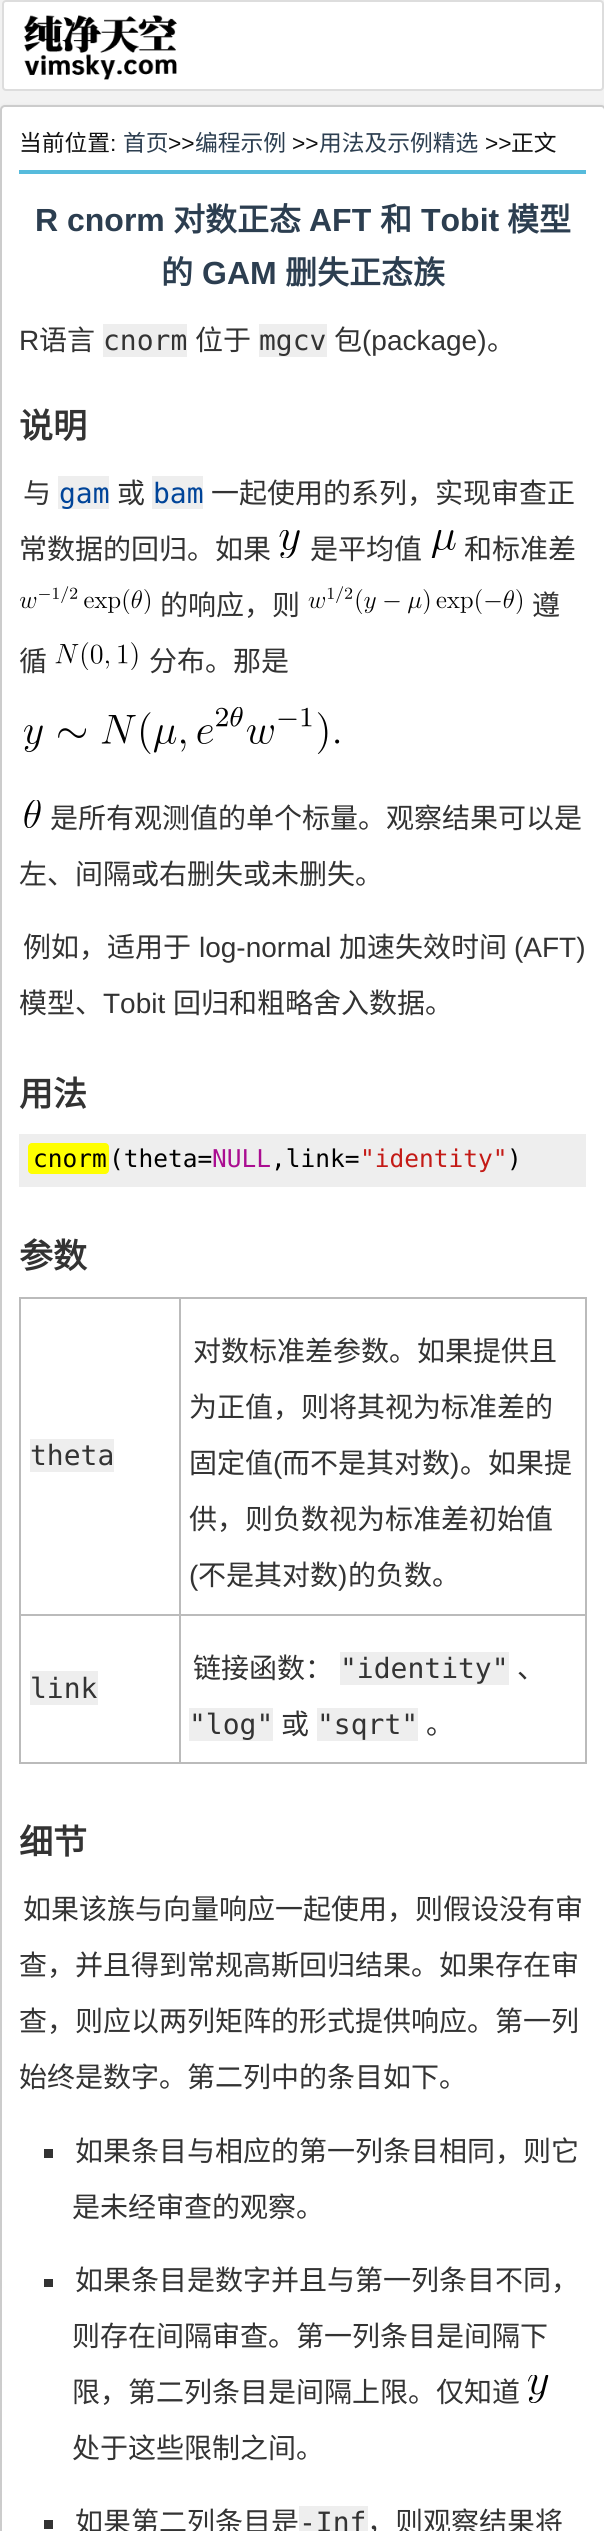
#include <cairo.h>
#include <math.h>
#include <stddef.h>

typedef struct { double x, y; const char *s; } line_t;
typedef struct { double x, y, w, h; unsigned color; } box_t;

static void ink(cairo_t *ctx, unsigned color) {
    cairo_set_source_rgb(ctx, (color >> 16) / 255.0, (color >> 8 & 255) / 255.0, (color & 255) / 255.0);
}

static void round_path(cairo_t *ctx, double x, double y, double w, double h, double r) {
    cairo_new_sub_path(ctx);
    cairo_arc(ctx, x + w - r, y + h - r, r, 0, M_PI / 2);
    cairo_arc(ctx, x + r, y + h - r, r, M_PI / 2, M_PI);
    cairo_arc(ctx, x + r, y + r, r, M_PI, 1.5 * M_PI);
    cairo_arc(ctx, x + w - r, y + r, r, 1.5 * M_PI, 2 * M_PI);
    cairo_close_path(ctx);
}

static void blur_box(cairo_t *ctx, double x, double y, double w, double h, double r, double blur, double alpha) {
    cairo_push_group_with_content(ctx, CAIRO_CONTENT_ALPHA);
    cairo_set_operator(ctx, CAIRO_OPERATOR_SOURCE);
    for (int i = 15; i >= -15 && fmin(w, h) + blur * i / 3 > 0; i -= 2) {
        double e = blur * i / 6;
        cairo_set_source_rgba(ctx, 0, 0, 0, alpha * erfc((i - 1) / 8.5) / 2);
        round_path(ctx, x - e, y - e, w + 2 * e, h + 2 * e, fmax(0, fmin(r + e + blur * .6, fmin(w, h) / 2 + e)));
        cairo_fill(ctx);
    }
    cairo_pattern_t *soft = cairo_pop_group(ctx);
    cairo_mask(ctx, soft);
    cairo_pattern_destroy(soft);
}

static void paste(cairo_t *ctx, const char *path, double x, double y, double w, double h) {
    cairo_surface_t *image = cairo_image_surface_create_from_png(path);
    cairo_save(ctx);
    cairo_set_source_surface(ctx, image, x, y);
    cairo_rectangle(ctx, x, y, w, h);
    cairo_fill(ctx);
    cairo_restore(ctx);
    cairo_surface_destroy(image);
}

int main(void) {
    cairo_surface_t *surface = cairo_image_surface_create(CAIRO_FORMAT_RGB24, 604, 2531);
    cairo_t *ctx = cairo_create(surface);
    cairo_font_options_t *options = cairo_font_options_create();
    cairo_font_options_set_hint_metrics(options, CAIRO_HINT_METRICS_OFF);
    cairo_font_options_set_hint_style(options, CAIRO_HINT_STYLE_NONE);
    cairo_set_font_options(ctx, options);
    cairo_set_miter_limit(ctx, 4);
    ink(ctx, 0xF2F2F2);
    cairo_paint(ctx);
    ink(ctx, 0xFFFFFF);
    round_path(ctx, 3, 1, 600, 89, 3);
    cairo_fill_preserve(ctx);
    ink(ctx, 0xDDDDDD);
    cairo_stroke(ctx);
    paste(ctx, "media/1.png", 24, 15, 153, 65);
    ink(ctx, 0xCCCCCC);
    blur_box(ctx, 0, 107, 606, 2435, 5, 2, 1);
    ink(ctx, 0xFFFFFF);
    round_path(ctx, 1, 106, 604, 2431, 4);
    cairo_fill_preserve(ctx);
    ink(ctx, 0xCCCCCC);
    cairo_stroke(ctx);
    cairo_select_font_face(ctx, "Noto Sans CJK SC", CAIRO_FONT_SLANT_NORMAL, CAIRO_FONT_WEIGHT_NORMAL);
    cairo_set_font_size(ctx, 22.75);
    ink(ctx, 0x111111);
    cairo_move_to(ctx, 19, 151);
    cairo_show_text(ctx, "当前位置");
    cairo_select_font_face(ctx, "Liberation Sans", CAIRO_FONT_SLANT_NORMAL, CAIRO_FONT_WEIGHT_NORMAL);
    cairo_move_to(ctx, 110, 151);
    cairo_show_text(ctx, ":");
    cairo_select_font_face(ctx, "Noto Sans CJK SC", CAIRO_FONT_SLANT_NORMAL, CAIRO_FONT_WEIGHT_NORMAL);
    ink(ctx, 0x2C3E50);
    cairo_move_to(ctx, 123, 151);
    cairo_show_text(ctx, "首页");
    cairo_select_font_face(ctx, "Liberation Sans", CAIRO_FONT_SLANT_NORMAL, CAIRO_FONT_WEIGHT_NORMAL);
    ink(ctx, 0x111111);
    cairo_move_to(ctx, 168, 151);
    cairo_show_text(ctx, ">>");
    cairo_select_font_face(ctx, "Noto Sans CJK SC", CAIRO_FONT_SLANT_NORMAL, CAIRO_FONT_WEIGHT_NORMAL);
    ink(ctx, 0x2C3E50);
    cairo_move_to(ctx, 195, 151);
    cairo_show_text(ctx, "编程示例");
    cairo_select_font_face(ctx, "Liberation Sans", CAIRO_FONT_SLANT_NORMAL, CAIRO_FONT_WEIGHT_NORMAL);
    ink(ctx, 0x111111);
    cairo_move_to(ctx, 292, 151);
    cairo_show_text(ctx, ">>");
    cairo_select_font_face(ctx, "Noto Sans CJK SC", CAIRO_FONT_SLANT_NORMAL, CAIRO_FONT_WEIGHT_NORMAL);
    ink(ctx, 0x2C3E50);
    cairo_move_to(ctx, 319, 151);
    cairo_show_text(ctx, "用法及示例精选");
    cairo_select_font_face(ctx, "Liberation Sans", CAIRO_FONT_SLANT_NORMAL, CAIRO_FONT_WEIGHT_NORMAL);
    ink(ctx, 0x111111);
    cairo_move_to(ctx, 485, 151);
    cairo_show_text(ctx, ">>");
    cairo_select_font_face(ctx, "Noto Sans CJK SC", CAIRO_FONT_SLANT_NORMAL, CAIRO_FONT_WEIGHT_NORMAL);
    cairo_move_to(ctx, 511, 151);
    cairo_show_text(ctx, "正文");
    ink(ctx, 0x56BBDC);
    cairo_rectangle(ctx, 19, 170, 567, 4);
    cairo_fill(ctx);
    cairo_select_font_face(ctx, "Liberation Sans", CAIRO_FONT_SLANT_NORMAL, CAIRO_FONT_WEIGHT_BOLD);
    cairo_set_font_size(ctx, 32);
    ink(ctx, 0x2C3E50);
    cairo_move_to(ctx, 35, 231);
    cairo_show_text(ctx, "R cnorm");
    cairo_select_font_face(ctx, "Noto Sans CJK SC", CAIRO_FONT_SLANT_NORMAL, CAIRO_FONT_WEIGHT_BOLD);
    cairo_move_to(ctx, 173, 231);
    cairo_show_text(ctx, "对数正态");
    cairo_select_font_face(ctx, "Liberation Sans", CAIRO_FONT_SLANT_NORMAL, CAIRO_FONT_WEIGHT_BOLD);
    cairo_move_to(ctx, 309, 231);
    cairo_show_text(ctx, "AFT");
    cairo_select_font_face(ctx, "Noto Sans CJK SC", CAIRO_FONT_SLANT_NORMAL, CAIRO_FONT_WEIGHT_BOLD);
    cairo_move_to(ctx, 380, 231);
    cairo_show_text(ctx, "和");
    cairo_select_font_face(ctx, "Liberation Sans", CAIRO_FONT_SLANT_NORMAL, CAIRO_FONT_WEIGHT_BOLD);
    cairo_move_to(ctx, 421, 231);
    cairo_show_text(ctx, "Tobit");
    cairo_select_font_face(ctx, "Noto Sans CJK SC", CAIRO_FONT_SLANT_NORMAL, CAIRO_FONT_WEIGHT_BOLD);
    cairo_move_to(ctx, 507, 231);
    cairo_show_text(ctx, "模型");
    cairo_move_to(ctx, 161, 284);
    cairo_show_text(ctx, "的");
    cairo_select_font_face(ctx, "Liberation Sans", CAIRO_FONT_SLANT_NORMAL, CAIRO_FONT_WEIGHT_BOLD);
    cairo_move_to(ctx, 202, 284);
    cairo_show_text(ctx, "GAM");
    cairo_select_font_face(ctx, "Noto Sans CJK SC", CAIRO_FONT_SLANT_NORMAL, CAIRO_FONT_WEIGHT_BOLD);
    cairo_move_to(ctx, 285, 284);
    cairo_show_text(ctx, "删失正态族");
    cairo_select_font_face(ctx, "Liberation Sans", CAIRO_FONT_SLANT_NORMAL, CAIRO_FONT_WEIGHT_NORMAL);
    cairo_set_font_size(ctx, 28);
    ink(ctx, 0x333333);
    cairo_move_to(ctx, 19, 350);
    cairo_show_text(ctx, "R");
    cairo_select_font_face(ctx, "Noto Sans CJK SC", CAIRO_FONT_SLANT_NORMAL, CAIRO_FONT_WEIGHT_NORMAL);
    cairo_move_to(ctx, 39, 350);
    cairo_show_text(ctx, "语言");
    ink(ctx, 0xEEEEEE);
    cairo_rectangle(ctx, 103, 324, 84, 33);
    cairo_fill(ctx);
    cairo_select_font_face(ctx, "DejaVu Sans Mono", CAIRO_FONT_SLANT_NORMAL, CAIRO_FONT_WEIGHT_NORMAL);
    ink(ctx, 0x333333);
    cairo_move_to(ctx, 103, 350);
    cairo_show_text(ctx, "cnorm");
    cairo_select_font_face(ctx, "Noto Sans CJK SC", CAIRO_FONT_SLANT_NORMAL, CAIRO_FONT_WEIGHT_NORMAL);
    cairo_move_to(ctx, 195, 350);
    cairo_show_text(ctx, "位于");
    ink(ctx, 0xEEEEEE);
    cairo_rectangle(ctx, 259, 324, 68, 33);
    cairo_fill(ctx);
    cairo_select_font_face(ctx, "DejaVu Sans Mono", CAIRO_FONT_SLANT_NORMAL, CAIRO_FONT_WEIGHT_NORMAL);
    ink(ctx, 0x333333);
    cairo_move_to(ctx, 259, 350);
    cairo_show_text(ctx, "mgcv");
    cairo_select_font_face(ctx, "Noto Sans CJK SC", CAIRO_FONT_SLANT_NORMAL, CAIRO_FONT_WEIGHT_NORMAL);
    cairo_move_to(ctx, 334, 350);
    cairo_show_text(ctx, "包");
    cairo_select_font_face(ctx, "Liberation Sans", CAIRO_FONT_SLANT_NORMAL, CAIRO_FONT_WEIGHT_NORMAL);
    cairo_move_to(ctx, 362, 350);
    cairo_show_text(ctx, "(package)");
    cairo_select_font_face(ctx, "Noto Sans CJK SC", CAIRO_FONT_SLANT_NORMAL, CAIRO_FONT_WEIGHT_NORMAL);
    cairo_move_to(ctx, 487, 350);
    cairo_show_text(ctx, "。");
    cairo_select_font_face(ctx, "Noto Sans CJK SC", CAIRO_FONT_SLANT_NORMAL, CAIRO_FONT_WEIGHT_BOLD);
    cairo_set_font_size(ctx, 34);
    cairo_move_to(ctx, 19, 438);
    cairo_show_text(ctx, "说明");
    cairo_select_font_face(ctx, "Noto Sans CJK SC", CAIRO_FONT_SLANT_NORMAL, CAIRO_FONT_WEIGHT_NORMAL);
    cairo_set_font_size(ctx, 28);
    cairo_move_to(ctx, 23, 503);
    cairo_show_text(ctx, "与");
    ink(ctx, 0xEEEEEE);
    cairo_rectangle(ctx, 58, 476, 51, 33);
    cairo_fill(ctx);
    cairo_select_font_face(ctx, "DejaVu Sans Mono", CAIRO_FONT_SLANT_NORMAL, CAIRO_FONT_WEIGHT_NORMAL);
    ink(ctx, 0x004499);
    cairo_move_to(ctx, 59, 503);
    cairo_show_text(ctx, "gam");
    cairo_select_font_face(ctx, "Noto Sans CJK SC", CAIRO_FONT_SLANT_NORMAL, CAIRO_FONT_WEIGHT_NORMAL);
    ink(ctx, 0x333333);
    cairo_move_to(ctx, 117, 503);
    cairo_show_text(ctx, "或");
    ink(ctx, 0xEEEEEE);
    cairo_rectangle(ctx, 152, 476, 51, 33);
    cairo_fill(ctx);
    cairo_select_font_face(ctx, "DejaVu Sans Mono", CAIRO_FONT_SLANT_NORMAL, CAIRO_FONT_WEIGHT_NORMAL);
    ink(ctx, 0x004499);
    cairo_move_to(ctx, 153, 503);
    cairo_show_text(ctx, "bam");
    cairo_select_font_face(ctx, "Noto Sans CJK SC", CAIRO_FONT_SLANT_NORMAL, CAIRO_FONT_WEIGHT_NORMAL);
    ink(ctx, 0x333333);
    cairo_move_to(ctx, 211, 503);
    cairo_show_text(ctx, "一起使用的系列，实现审查正");
    cairo_move_to(ctx, 19, 559);
    cairo_show_text(ctx, "常数据的回归。如果");
    paste(ctx, "media/2.png", 279, 530, 21, 28);
    cairo_move_to(ctx, 310, 559);
    cairo_show_text(ctx, "是平均值");
    paste(ctx, "media/3.png", 431, 530, 25, 28);
    cairo_move_to(ctx, 464, 559);
    cairo_show_text(ctx, "和标准差");
    paste(ctx, "media/4.png", 20, 586, 130, 28);
    cairo_move_to(ctx, 160, 615);
    cairo_show_text(ctx, "的响应，则");
    paste(ctx, "media/5.png", 308, 586, 214, 28);
    cairo_move_to(ctx, 532, 615);
    cairo_show_text(ctx, "遵");
    cairo_move_to(ctx, 19, 671);
    cairo_show_text(ctx, "循");
    paste(ctx, "media/6.png", 55, 642, 83, 28);
    cairo_move_to(ctx, 149, 671);
    cairo_show_text(ctx, "分布。那是");
    paste(ctx, "media/7.png", 24, 707, 316, 47);
    paste(ctx, "media/8.png", 24, 800, 17, 28);
    {
        static const line_t items[] = {
            {50, 828, "是所有观测值的单个标量。观察结果可以是"},
            {19, 884, "左、间隔或右删失或未删失。"},
            {23, 957, "例如，适用于"},
        };
        for (size_t i = 0; i < sizeof items / sizeof *items; i++) {
            cairo_move_to(ctx, items[i].x, items[i].y);
            cairo_show_text(ctx, items[i].s);
        }
    }
    cairo_select_font_face(ctx, "Liberation Sans", CAIRO_FONT_SLANT_NORMAL, CAIRO_FONT_WEIGHT_NORMAL);
    cairo_move_to(ctx, 199, 957);
    cairo_show_text(ctx, "log-normal");
    cairo_select_font_face(ctx, "Noto Sans CJK SC", CAIRO_FONT_SLANT_NORMAL, CAIRO_FONT_WEIGHT_NORMAL);
    cairo_move_to(ctx, 339, 957);
    cairo_show_text(ctx, "加速失效时间");
    cairo_select_font_face(ctx, "Liberation Sans", CAIRO_FONT_SLANT_NORMAL, CAIRO_FONT_WEIGHT_NORMAL);
    cairo_move_to(ctx, 514, 957);
    cairo_show_text(ctx, "(AFT)");
    cairo_select_font_face(ctx, "Noto Sans CJK SC", CAIRO_FONT_SLANT_NORMAL, CAIRO_FONT_WEIGHT_NORMAL);
    cairo_move_to(ctx, 19, 1013);
    cairo_show_text(ctx, "模型、");
    cairo_select_font_face(ctx, "Liberation Sans", CAIRO_FONT_SLANT_NORMAL, CAIRO_FONT_WEIGHT_NORMAL);
    cairo_move_to(ctx, 103, 1013);
    cairo_show_text(ctx, "Tobit");
    cairo_select_font_face(ctx, "Noto Sans CJK SC", CAIRO_FONT_SLANT_NORMAL, CAIRO_FONT_WEIGHT_NORMAL);
    cairo_move_to(ctx, 173, 1013);
    cairo_show_text(ctx, "回归和粗略舍入数据。");
    cairo_select_font_face(ctx, "Noto Sans CJK SC", CAIRO_FONT_SLANT_NORMAL, CAIRO_FONT_WEIGHT_BOLD);
    cairo_set_font_size(ctx, 34);
    cairo_move_to(ctx, 19, 1106);
    cairo_show_text(ctx, "用法");
    ink(ctx, 0xEEEEEE);
    cairo_rectangle(ctx, 19, 1134, 567, 53);
    cairo_fill(ctx);
    ink(ctx, 0xFFFF00);
    round_path(ctx, 28, 1143, 81, 31, 4);
    cairo_fill(ctx);
    cairo_select_font_face(ctx, "DejaVu Sans Mono", CAIRO_FONT_SLANT_NORMAL, CAIRO_FONT_WEIGHT_NORMAL);
    cairo_set_font_size(ctx, 24.5);
    ink(ctx, 0x000000);
    cairo_move_to(ctx, 33, 1167);
    cairo_show_text(ctx, "cnorm");
    cairo_move_to(ctx, 109, 1167);
    cairo_show_text(ctx, "(theta=");
    ink(ctx, 0xAA0D91);
    cairo_move_to(ctx, 212, 1167);
    cairo_show_text(ctx, "NULL");
    ink(ctx, 0x000000);
    cairo_move_to(ctx, 271, 1167);
    cairo_show_text(ctx, ",link=");
    ink(ctx, 0xC41A16);
    cairo_move_to(ctx, 360, 1167);
    cairo_show_text(ctx, "\"identity\"");
    ink(ctx, 0x000000);
    cairo_move_to(ctx, 507, 1167);
    cairo_show_text(ctx, ")");
    cairo_select_font_face(ctx, "Noto Sans CJK SC", CAIRO_FONT_SLANT_NORMAL, CAIRO_FONT_WEIGHT_BOLD);
    cairo_set_font_size(ctx, 34);
    ink(ctx, 0x333333);
    cairo_move_to(ctx, 19, 1268);
    cairo_show_text(ctx, "参数");
    {
        static const box_t items[] = {
            {179, 1297, 407, 2, 0xBBBBBB},
            {179, 1614, 407, 2, 0xBBBBBB},
            {585, 1614, 2, 150, 0xBBBBBB},
            {179, 1762, 407, 2, 0xBBBBBB},
            {179, 1614, 2, 150, 0xBBBBBB},
            {19, 1614, 161, 2, 0xBBBBBB},
            {179, 1297, 2, 318, 0xBBBBBB},
            {19, 1297, 161, 2, 0xBBBBBB},
            {19, 1762, 161, 2, 0xBBBBBB},
            {19, 1614, 2, 150, 0xBBBBBB},
            {19, 1297, 2, 318, 0xBBBBBB},
            {30, 1439, 84, 33, 0xEEEEEE},
        };
        for (size_t i = 0; i < sizeof items / sizeof *items; i++) {
            ink(ctx, items[i].color);
            cairo_rectangle(ctx, items[i].x, items[i].y, items[i].w, items[i].h);
            cairo_fill(ctx);
        }
    }
    cairo_select_font_face(ctx, "DejaVu Sans Mono", CAIRO_FONT_SLANT_NORMAL, CAIRO_FONT_WEIGHT_NORMAL);
    cairo_set_font_size(ctx, 28);
    ink(ctx, 0x333333);
    cairo_move_to(ctx, 30, 1465);
    cairo_show_text(ctx, "theta");
    ink(ctx, 0xBBBBBB);
    cairo_rectangle(ctx, 585, 1297, 2, 318);
    cairo_fill(ctx);
    cairo_select_font_face(ctx, "Noto Sans CJK SC", CAIRO_FONT_SLANT_NORMAL, CAIRO_FONT_WEIGHT_NORMAL);
    ink(ctx, 0x333333);
    {
        static const line_t items[] = {
            {193, 1361, "对数标准差参数。如果提供且"},
            {189, 1417, "为正值，则将其视为标准差的"},
            {189, 1473, "固定值"},
        };
        for (size_t i = 0; i < sizeof items / sizeof *items; i++) {
            cairo_move_to(ctx, items[i].x, items[i].y);
            cairo_show_text(ctx, items[i].s);
        }
    }
    cairo_select_font_face(ctx, "Liberation Sans", CAIRO_FONT_SLANT_NORMAL, CAIRO_FONT_WEIGHT_NORMAL);
    cairo_move_to(ctx, 273, 1473);
    cairo_show_text(ctx, "(");
    cairo_select_font_face(ctx, "Noto Sans CJK SC", CAIRO_FONT_SLANT_NORMAL, CAIRO_FONT_WEIGHT_NORMAL);
    cairo_move_to(ctx, 282, 1473);
    cairo_show_text(ctx, "而不是其对数");
    cairo_select_font_face(ctx, "Liberation Sans", CAIRO_FONT_SLANT_NORMAL, CAIRO_FONT_WEIGHT_NORMAL);
    cairo_move_to(ctx, 450, 1473);
    cairo_show_text(ctx, ")");
    cairo_select_font_face(ctx, "Noto Sans CJK SC", CAIRO_FONT_SLANT_NORMAL, CAIRO_FONT_WEIGHT_NORMAL);
    cairo_move_to(ctx, 460, 1473);
    cairo_show_text(ctx, "。如果提");
    cairo_move_to(ctx, 189, 1529);
    cairo_show_text(ctx, "供，则负数视为标准差初始值");
    cairo_select_font_face(ctx, "Liberation Sans", CAIRO_FONT_SLANT_NORMAL, CAIRO_FONT_WEIGHT_NORMAL);
    cairo_move_to(ctx, 189, 1585);
    cairo_show_text(ctx, "(");
    cairo_select_font_face(ctx, "Noto Sans CJK SC", CAIRO_FONT_SLANT_NORMAL, CAIRO_FONT_WEIGHT_NORMAL);
    cairo_move_to(ctx, 198, 1585);
    cairo_show_text(ctx, "不是其对数");
    cairo_select_font_face(ctx, "Liberation Sans", CAIRO_FONT_SLANT_NORMAL, CAIRO_FONT_WEIGHT_NORMAL);
    cairo_move_to(ctx, 338, 1585);
    cairo_show_text(ctx, ")");
    cairo_select_font_face(ctx, "Noto Sans CJK SC", CAIRO_FONT_SLANT_NORMAL, CAIRO_FONT_WEIGHT_NORMAL);
    cairo_move_to(ctx, 348, 1585);
    cairo_show_text(ctx, "的负数。");
    ink(ctx, 0xEEEEEE);
    cairo_rectangle(ctx, 30, 1671, 68, 34);
    cairo_fill(ctx);
    cairo_select_font_face(ctx, "DejaVu Sans Mono", CAIRO_FONT_SLANT_NORMAL, CAIRO_FONT_WEIGHT_NORMAL);
    ink(ctx, 0x333333);
    cairo_move_to(ctx, 30, 1698);
    cairo_show_text(ctx, "link");
    cairo_select_font_face(ctx, "Noto Sans CJK SC", CAIRO_FONT_SLANT_NORMAL, CAIRO_FONT_WEIGHT_NORMAL);
    cairo_move_to(ctx, 193, 1678);
    cairo_show_text(ctx, "链接函数：");
    ink(ctx, 0xEEEEEE);
    cairo_rectangle(ctx, 340, 1652, 169, 33);
    cairo_fill(ctx);
    cairo_select_font_face(ctx, "DejaVu Sans Mono", CAIRO_FONT_SLANT_NORMAL, CAIRO_FONT_WEIGHT_NORMAL);
    ink(ctx, 0x333333);
    cairo_move_to(ctx, 340, 1678);
    cairo_show_text(ctx, "\"identity\"");
    cairo_select_font_face(ctx, "Noto Sans CJK SC", CAIRO_FONT_SLANT_NORMAL, CAIRO_FONT_WEIGHT_NORMAL);
    cairo_move_to(ctx, 517, 1678);
    cairo_show_text(ctx, "、");
    ink(ctx, 0xEEEEEE);
    cairo_rectangle(ctx, 189, 1708, 84, 33);
    cairo_fill(ctx);
    cairo_select_font_face(ctx, "DejaVu Sans Mono", CAIRO_FONT_SLANT_NORMAL, CAIRO_FONT_WEIGHT_NORMAL);
    ink(ctx, 0x333333);
    cairo_move_to(ctx, 189, 1734);
    cairo_show_text(ctx, "\"log\"");
    cairo_select_font_face(ctx, "Noto Sans CJK SC", CAIRO_FONT_SLANT_NORMAL, CAIRO_FONT_WEIGHT_NORMAL);
    cairo_move_to(ctx, 281, 1734);
    cairo_show_text(ctx, "或");
    ink(ctx, 0xEEEEEE);
    cairo_rectangle(ctx, 317, 1708, 101, 33);
    cairo_fill(ctx);
    cairo_select_font_face(ctx, "DejaVu Sans Mono", CAIRO_FONT_SLANT_NORMAL, CAIRO_FONT_WEIGHT_NORMAL);
    ink(ctx, 0x333333);
    cairo_move_to(ctx, 317, 1734);
    cairo_show_text(ctx, "\"sqrt\"");
    cairo_select_font_face(ctx, "Noto Sans CJK SC", CAIRO_FONT_SLANT_NORMAL, CAIRO_FONT_WEIGHT_NORMAL);
    cairo_move_to(ctx, 426, 1734);
    cairo_show_text(ctx, "。");
    cairo_select_font_face(ctx, "Noto Sans CJK SC", CAIRO_FONT_SLANT_NORMAL, CAIRO_FONT_WEIGHT_BOLD);
    cairo_set_font_size(ctx, 34);
    cairo_move_to(ctx, 19, 1854);
    cairo_show_text(ctx, "细节");
    cairo_select_font_face(ctx, "Noto Sans CJK SC", CAIRO_FONT_SLANT_NORMAL, CAIRO_FONT_WEIGHT_NORMAL);
    cairo_set_font_size(ctx, 28);
    {
        static const line_t items[] = {
            {23, 1919, "如果该族与向量响应一起使用，则假设没有审"},
            {19, 1975, "查，并且得到常规高斯回归结果。如果存在审"},
            {19, 2031, "查，则应以两列矩阵的形式提供响应。第一列"},
            {19, 2087, "始终是数字。第二列中的条目如下。"},
        };
        for (size_t i = 0; i < sizeof items / sizeof *items; i++) {
            cairo_move_to(ctx, items[i].x, items[i].y);
            cairo_show_text(ctx, items[i].s);
        }
    }
    cairo_rectangle(ctx, 44, 2149, 9, 9);
    cairo_fill(ctx);
    cairo_move_to(ctx, 75, 2161);
    cairo_show_text(ctx, "如果条目与相应的第一列条目相同，则它");
    cairo_move_to(ctx, 72, 2217);
    cairo_show_text(ctx, "是未经审查的观察。");
    cairo_rectangle(ctx, 44, 2279, 9, 8);
    cairo_fill(ctx);
    {
        static const line_t items[] = {
            {75, 2290, "如果条目是数字并且与第一列条目不同，"},
            {72, 2346, "则存在间隔审查。第一列条目是间隔下"},
            {72, 2402, "限，第二列条目是间隔上限。仅知道"},
        };
        for (size_t i = 0; i < sizeof items / sizeof *items; i++) {
            cairo_move_to(ctx, items[i].x, items[i].y);
            cairo_show_text(ctx, items[i].s);
        }
    }
    paste(ctx, "media/9.png", 528, 2375, 21, 28);
    cairo_move_to(ctx, 72, 2458);
    cairo_show_text(ctx, "处于这些限制之间。");
    cairo_rectangle(ctx, 44, 2520, 9, 9);
    cairo_fill(ctx);
    cairo_move_to(ctx, 75, 2532);
    cairo_show_text(ctx, "如果第二列条目是");
    ink(ctx, 0xEEEEEE);
    cairo_rectangle(ctx, 299, 2506, 69, 25);
    cairo_fill(ctx);
    cairo_select_font_face(ctx, "DejaVu Sans Mono", CAIRO_FONT_SLANT_NORMAL, CAIRO_FONT_WEIGHT_NORMAL);
    ink(ctx, 0x333333);
    cairo_move_to(ctx, 299, 2532);
    cairo_show_text(ctx, "-Inf");
    cairo_select_font_face(ctx, "Noto Sans CJK SC", CAIRO_FONT_SLANT_NORMAL, CAIRO_FONT_WEIGHT_NORMAL);
    cairo_move_to(ctx, 367, 2532);
    cairo_show_text(ctx, "，则观察结果将");
    cairo_surface_write_to_png(surface, "image.png");
    cairo_font_options_destroy(options);
    cairo_destroy(ctx);
    cairo_surface_destroy(surface);
    return 0;
}
